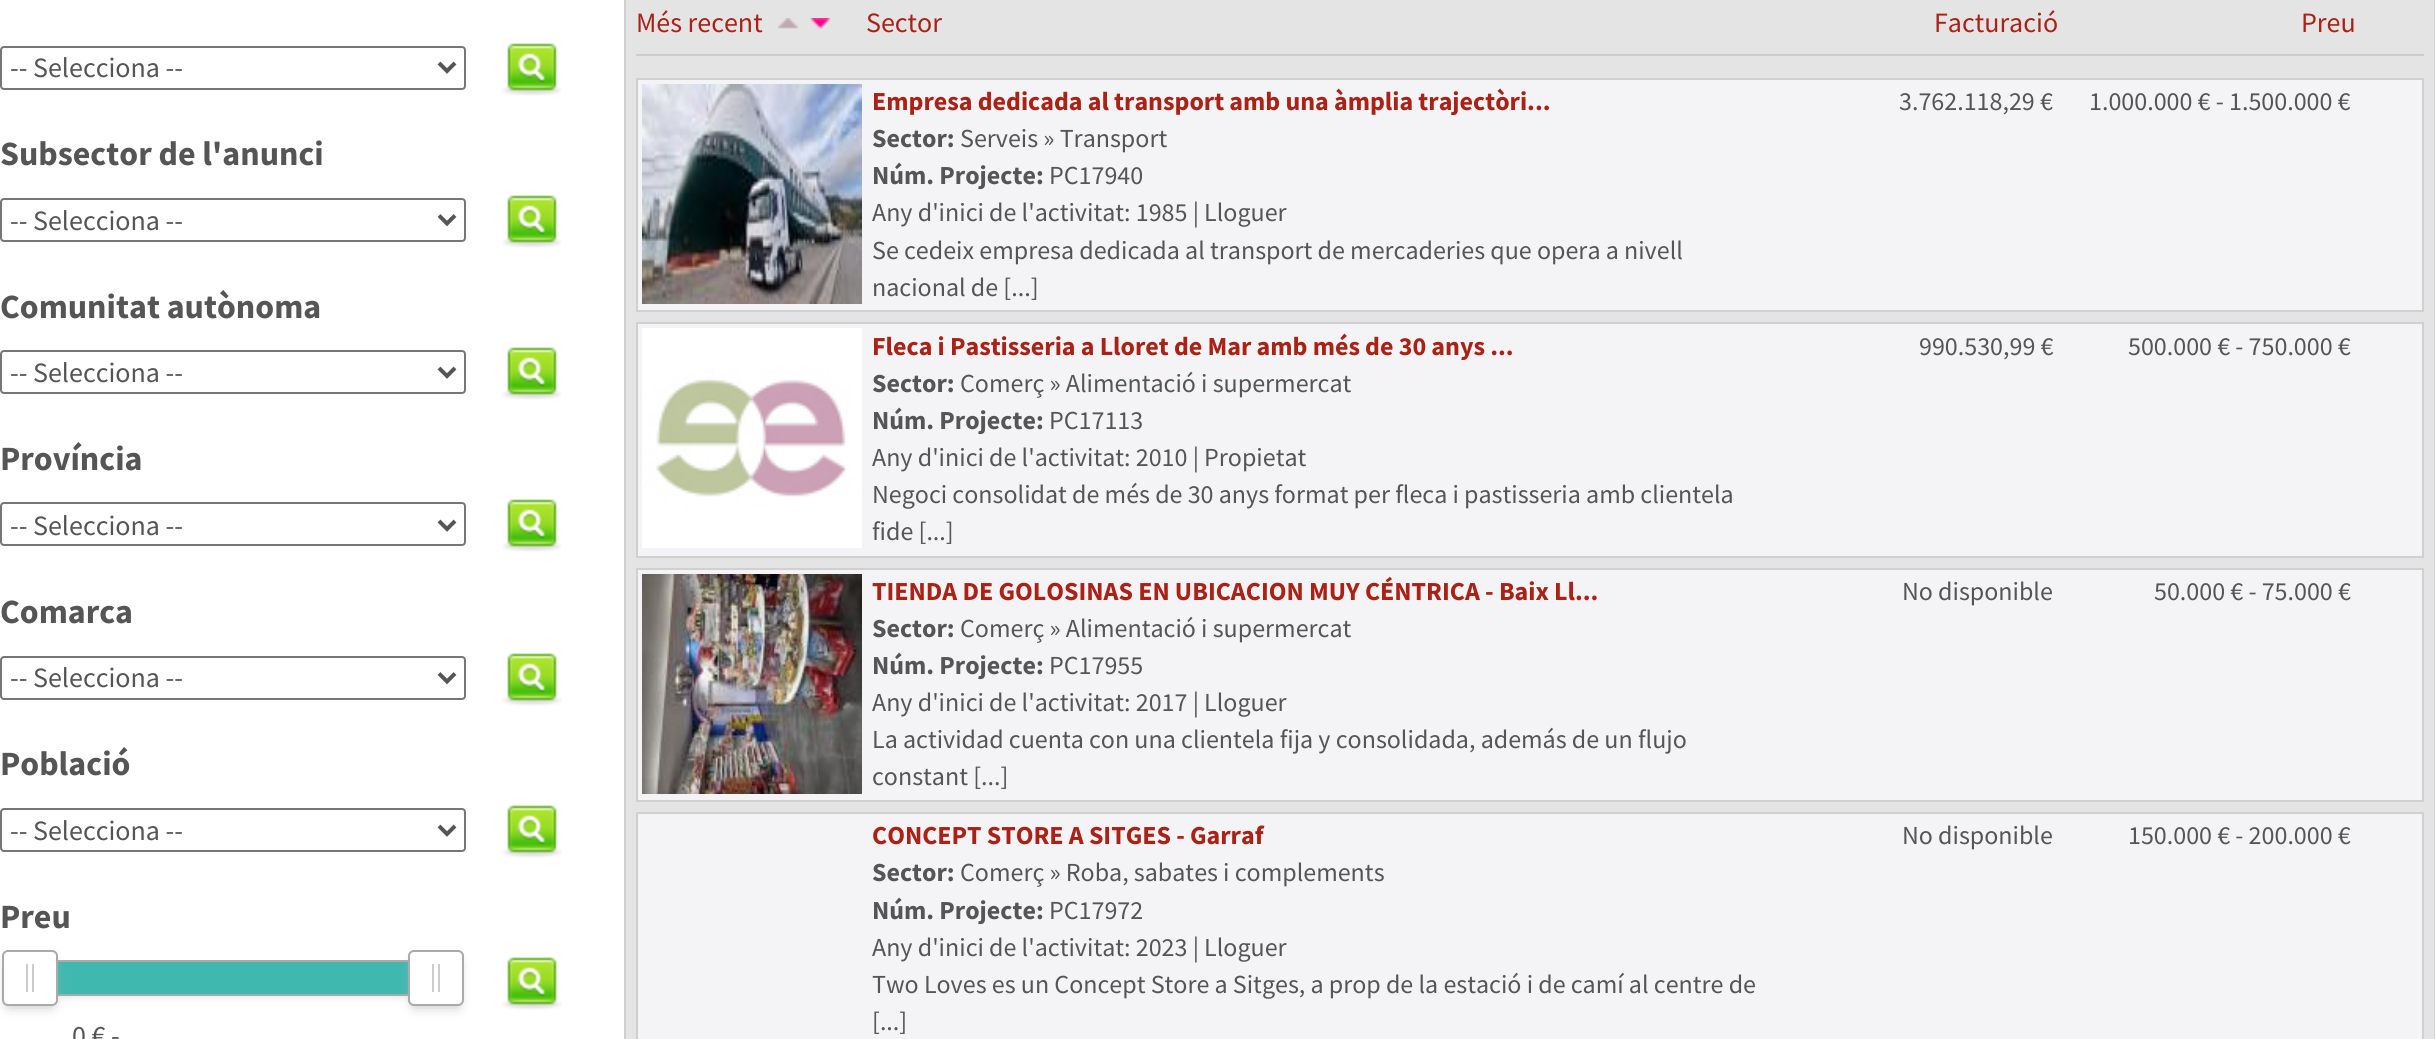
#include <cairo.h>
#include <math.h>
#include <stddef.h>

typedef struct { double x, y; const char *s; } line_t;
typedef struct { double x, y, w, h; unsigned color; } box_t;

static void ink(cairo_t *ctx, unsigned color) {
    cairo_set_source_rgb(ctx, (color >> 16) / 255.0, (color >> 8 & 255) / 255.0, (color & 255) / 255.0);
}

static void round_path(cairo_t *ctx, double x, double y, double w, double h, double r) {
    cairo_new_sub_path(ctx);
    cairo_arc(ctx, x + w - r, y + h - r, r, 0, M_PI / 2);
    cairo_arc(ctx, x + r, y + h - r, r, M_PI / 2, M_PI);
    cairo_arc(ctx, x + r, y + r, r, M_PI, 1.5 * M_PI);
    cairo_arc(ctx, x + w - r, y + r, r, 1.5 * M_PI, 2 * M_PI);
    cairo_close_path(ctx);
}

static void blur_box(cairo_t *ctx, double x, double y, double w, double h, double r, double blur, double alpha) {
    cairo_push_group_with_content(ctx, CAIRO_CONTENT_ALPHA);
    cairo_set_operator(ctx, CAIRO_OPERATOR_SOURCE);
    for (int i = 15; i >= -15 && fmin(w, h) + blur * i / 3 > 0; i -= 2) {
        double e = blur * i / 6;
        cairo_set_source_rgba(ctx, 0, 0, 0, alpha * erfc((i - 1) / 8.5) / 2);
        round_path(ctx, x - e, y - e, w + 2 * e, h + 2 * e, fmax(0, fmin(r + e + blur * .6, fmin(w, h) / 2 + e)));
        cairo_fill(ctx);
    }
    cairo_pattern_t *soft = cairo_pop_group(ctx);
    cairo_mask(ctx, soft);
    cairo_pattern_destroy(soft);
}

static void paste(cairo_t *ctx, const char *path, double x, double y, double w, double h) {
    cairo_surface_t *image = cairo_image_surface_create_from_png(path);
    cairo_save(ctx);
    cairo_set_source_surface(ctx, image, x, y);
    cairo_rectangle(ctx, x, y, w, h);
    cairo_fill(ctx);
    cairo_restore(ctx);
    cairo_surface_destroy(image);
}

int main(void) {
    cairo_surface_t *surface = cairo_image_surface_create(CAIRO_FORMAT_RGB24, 2435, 1039);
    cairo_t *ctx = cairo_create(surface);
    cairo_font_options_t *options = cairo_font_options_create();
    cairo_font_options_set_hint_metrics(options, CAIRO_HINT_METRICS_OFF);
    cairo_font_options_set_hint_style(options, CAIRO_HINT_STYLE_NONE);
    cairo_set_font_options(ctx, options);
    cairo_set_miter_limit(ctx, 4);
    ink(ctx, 0xFFFFFF);
    cairo_paint(ctx);
    round_path(ctx, 1, 47, 464, 42, 3);
    ink(ctx, 0x767676);
    cairo_stroke(ctx);
    cairo_new_path(ctx);
    cairo_move_to(ctx, 439, 63);
    cairo_line_to(ctx, 447, 71);
    cairo_line_to(ctx, 455, 63);
    ink(ctx, 0x555555);
    cairo_set_line_width(ctx, 4);
    cairo_stroke(ctx);
    cairo_select_font_face(ctx, "Source Sans Pro", CAIRO_FONT_SLANT_NORMAL, CAIRO_FONT_WEIGHT_NORMAL);
    cairo_set_font_size(ctx, 28);
    cairo_move_to(ctx, 10, 77);
    cairo_show_text(ctx, "-- Selecciona --");
    paste(ctx, "media/1.png", 502, 43, 59, 53);
    cairo_select_font_face(ctx, "Source Sans Pro", CAIRO_FONT_SLANT_NORMAL, CAIRO_FONT_WEIGHT_BOLD);
    cairo_set_font_size(ctx, 34);
    cairo_move_to(ctx, 0, 165);
    cairo_show_text(ctx, "Subsector de l'anunci");
    round_path(ctx, 1, 199, 464, 42, 3);
    ink(ctx, 0x767676);
    cairo_set_line_width(ctx, 2);
    cairo_stroke(ctx);
    cairo_new_path(ctx);
    cairo_move_to(ctx, 439, 215.5);
    cairo_line_to(ctx, 447, 223.5);
    cairo_line_to(ctx, 455, 215.5);
    ink(ctx, 0x555555);
    cairo_set_line_width(ctx, 4);
    cairo_stroke(ctx);
    cairo_select_font_face(ctx, "Source Sans Pro", CAIRO_FONT_SLANT_NORMAL, CAIRO_FONT_WEIGHT_NORMAL);
    cairo_set_font_size(ctx, 28);
    cairo_move_to(ctx, 10, 230);
    cairo_show_text(ctx, "-- Selecciona --");
    paste(ctx, "media/1.png", 502, 195, 59, 53);
    cairo_select_font_face(ctx, "Source Sans Pro", CAIRO_FONT_SLANT_NORMAL, CAIRO_FONT_WEIGHT_BOLD);
    cairo_set_font_size(ctx, 34);
    cairo_move_to(ctx, 0, 318);
    cairo_show_text(ctx, "Comunitat autònoma");
    round_path(ctx, 1, 351, 464, 42, 3);
    ink(ctx, 0x767676);
    cairo_set_line_width(ctx, 2);
    cairo_stroke(ctx);
    cairo_new_path(ctx);
    cairo_move_to(ctx, 439, 368);
    cairo_line_to(ctx, 447, 376);
    cairo_line_to(ctx, 455, 368);
    ink(ctx, 0x555555);
    cairo_set_line_width(ctx, 4);
    cairo_stroke(ctx);
    cairo_select_font_face(ctx, "Source Sans Pro", CAIRO_FONT_SLANT_NORMAL, CAIRO_FONT_WEIGHT_NORMAL);
    cairo_set_font_size(ctx, 28);
    cairo_move_to(ctx, 10, 382);
    cairo_show_text(ctx, "-- Selecciona --");
    paste(ctx, "media/1.png", 502, 347, 59, 53);
    cairo_select_font_face(ctx, "Source Sans Pro", CAIRO_FONT_SLANT_NORMAL, CAIRO_FONT_WEIGHT_BOLD);
    cairo_set_font_size(ctx, 34);
    cairo_move_to(ctx, 0, 470);
    cairo_show_text(ctx, "Província");
    round_path(ctx, 1, 503, 464, 42, 3);
    ink(ctx, 0x767676);
    cairo_set_line_width(ctx, 2);
    cairo_stroke(ctx);
    cairo_new_path(ctx);
    cairo_move_to(ctx, 439, 521);
    cairo_line_to(ctx, 447, 529);
    cairo_line_to(ctx, 455, 521);
    ink(ctx, 0x555555);
    cairo_set_line_width(ctx, 4);
    cairo_stroke(ctx);
    cairo_select_font_face(ctx, "Source Sans Pro", CAIRO_FONT_SLANT_NORMAL, CAIRO_FONT_WEIGHT_NORMAL);
    cairo_set_font_size(ctx, 28);
    cairo_move_to(ctx, 10, 535);
    cairo_show_text(ctx, "-- Selecciona --");
    paste(ctx, "media/1.png", 502, 499, 59, 53);
    cairo_select_font_face(ctx, "Source Sans Pro", CAIRO_FONT_SLANT_NORMAL, CAIRO_FONT_WEIGHT_BOLD);
    cairo_set_font_size(ctx, 34);
    cairo_move_to(ctx, 0, 623);
    cairo_show_text(ctx, "Comarca");
    round_path(ctx, 1, 657, 464, 42, 3);
    ink(ctx, 0x767676);
    cairo_set_line_width(ctx, 2);
    cairo_stroke(ctx);
    cairo_new_path(ctx);
    cairo_move_to(ctx, 439, 673.5);
    cairo_line_to(ctx, 447, 681.5);
    cairo_line_to(ctx, 455, 673.5);
    ink(ctx, 0x555555);
    cairo_set_line_width(ctx, 4);
    cairo_stroke(ctx);
    cairo_select_font_face(ctx, "Source Sans Pro", CAIRO_FONT_SLANT_NORMAL, CAIRO_FONT_WEIGHT_NORMAL);
    cairo_set_font_size(ctx, 28);
    cairo_move_to(ctx, 10, 687);
    cairo_show_text(ctx, "-- Selecciona --");
    paste(ctx, "media/1.png", 502, 653, 59, 53);
    cairo_select_font_face(ctx, "Source Sans Pro", CAIRO_FONT_SLANT_NORMAL, CAIRO_FONT_WEIGHT_BOLD);
    cairo_set_font_size(ctx, 34);
    cairo_move_to(ctx, 0, 775);
    cairo_show_text(ctx, "Població");
    round_path(ctx, 1, 809, 464, 42, 3);
    ink(ctx, 0x767676);
    cairo_set_line_width(ctx, 2);
    cairo_stroke(ctx);
    cairo_new_path(ctx);
    cairo_move_to(ctx, 439, 826);
    cairo_line_to(ctx, 447, 834);
    cairo_line_to(ctx, 455, 826);
    ink(ctx, 0x555555);
    cairo_set_line_width(ctx, 4);
    cairo_stroke(ctx);
    cairo_select_font_face(ctx, "Source Sans Pro", CAIRO_FONT_SLANT_NORMAL, CAIRO_FONT_WEIGHT_NORMAL);
    cairo_set_font_size(ctx, 28);
    cairo_move_to(ctx, 10, 840);
    cairo_show_text(ctx, "-- Selecciona --");
    paste(ctx, "media/1.png", 502, 805, 59, 53);
    cairo_select_font_face(ctx, "Source Sans Pro", CAIRO_FONT_SLANT_NORMAL, CAIRO_FONT_WEIGHT_BOLD);
    cairo_set_font_size(ctx, 34);
    cairo_move_to(ctx, 0, 928);
    cairo_show_text(ctx, "Preu");
    ink(ctx, 0xBBBBBB);
    blur_box(ctx, 44, 976, 390, 16, 0, 6, 1);
    cairo_rectangle(ctx, 35, 961, 408, 34);
    ink(ctx, 0xAAAAAA);
    cairo_set_line_width(ctx, 2);
    cairo_stroke(ctx);
    ink(ctx, 0x3FB8AF);
    cairo_rectangle(ctx, 58, 962, 350, 32);
    cairo_fill(ctx);
    ink(ctx, 0xBBBBBB);
    blur_box(ctx, 8, 962, 44, 44, 0, 6, 1);
    ink(ctx, 0xFFFFFF);
    round_path(ctx, 3, 951, 54, 54, 5);
    cairo_fill_preserve(ctx);
    ink(ctx, 0xAAAAAA);
    cairo_stroke(ctx);
    ink(ctx, 0xCCCCCC);
    cairo_rectangle(ctx, 26, 964, 2, 28);
    cairo_fill(ctx);
    cairo_rectangle(ctx, 32, 964, 2, 28);
    cairo_fill(ctx);
    ink(ctx, 0xBBBBBB);
    blur_box(ctx, 414, 962, 44, 44, 0, 6, 1);
    ink(ctx, 0xFFFFFF);
    round_path(ctx, 409, 951, 54, 54, 5);
    cairo_fill_preserve(ctx);
    ink(ctx, 0xAAAAAA);
    cairo_stroke(ctx);
    ink(ctx, 0xCCCCCC);
    cairo_rectangle(ctx, 432, 964, 2, 28);
    cairo_fill(ctx);
    cairo_rectangle(ctx, 438, 964, 2, 28);
    cairo_fill(ctx);
    paste(ctx, "media/1.png", 502, 957, 59, 53);
    cairo_select_font_face(ctx, "Source Sans Pro", CAIRO_FONT_SLANT_NORMAL, CAIRO_FONT_WEIGHT_NORMAL);
    cairo_set_font_size(ctx, 28);
    ink(ctx, 0x555555);
    cairo_move_to(ctx, 72, 1045);
    cairo_show_text(ctx, "0 € -");
    {
        static const box_t items[] = {
            {626, 0, 1808, 1039, 0xE4E4E4},
            {2434, 0, 1, 1039, 0xD0D0D0},
            {624, 0, 2, 1039, 0xD0D0D0},
        };
        for (size_t i = 0; i < sizeof items / sizeof *items; i++) {
            ink(ctx, items[i].color);
            cairo_rectangle(ctx, items[i].x, items[i].y, items[i].w, items[i].h);
            cairo_fill(ctx);
        }
    }
    ink(ctx, 0xAC2115);
    cairo_move_to(ctx, 636, 32);
    cairo_show_text(ctx, "Més recent");
    paste(ctx, "media/2.png", 778, 18, 20, 11);
    paste(ctx, "media/3.png", 810, 18, 20, 11);
    {
        static const line_t items[] = {
            {866, 32, "Sector"},
            {1934, 32, "Facturació"},
            {2301, 32, "Preu"},
        };
        for (size_t i = 0; i < sizeof items / sizeof *items; i++) {
            cairo_move_to(ctx, items[i].x, items[i].y);
            cairo_show_text(ctx, items[i].s);
        }
    }
    ink(ctx, 0xCCCCCC);
    cairo_rectangle(ctx, 636, 54, 1788, 2);
    cairo_fill(ctx);
    ink(ctx, 0xF4F4F6);
    cairo_rectangle(ctx, 637, 79, 1786, 232);
    cairo_fill_preserve(ctx);
    ink(ctx, 0xD0D0D0);
    cairo_stroke(ctx);
    paste(ctx, "media/4.png", 642, 84, 220, 220);
    cairo_select_font_face(ctx, "Source Sans Pro", CAIRO_FONT_SLANT_NORMAL, CAIRO_FONT_WEIGHT_BOLD);
    cairo_set_font_size(ctx, 26);
    ink(ctx, 0xAC2115);
    cairo_move_to(ctx, 872, 110);
    cairo_show_text(ctx, "Empresa dedicada al transport amb una àmplia trajectòri...");
    ink(ctx, 0x555555);
    cairo_move_to(ctx, 872, 147);
    cairo_show_text(ctx, "Sector:");
    cairo_select_font_face(ctx, "Source Sans Pro", CAIRO_FONT_SLANT_NORMAL, CAIRO_FONT_WEIGHT_NORMAL);
    cairo_move_to(ctx, 960, 147);
    cairo_show_text(ctx, "Serveis » Transport");
    cairo_select_font_face(ctx, "Source Sans Pro", CAIRO_FONT_SLANT_NORMAL, CAIRO_FONT_WEIGHT_BOLD);
    cairo_move_to(ctx, 872, 184);
    cairo_show_text(ctx, "Núm. Projecte:");
    cairo_select_font_face(ctx, "Source Sans Pro", CAIRO_FONT_SLANT_NORMAL, CAIRO_FONT_WEIGHT_NORMAL);
    {
        static const line_t items[] = {
            {1049, 184, "PC17940"},
            {872, 221, "Any d'inici de l'activitat: 1985 | Lloguer"},
            {872, 259, "Se cedeix empresa dedicada al transport de mercaderies que opera a nivell"},
            {872, 296, "nacional de [...]"},
            {1899, 110, "3.762.118,29 €"},
            {2089, 110, "1.000.000 € - 1.500.000 €"},
        };
        for (size_t i = 0; i < sizeof items / sizeof *items; i++) {
            cairo_move_to(ctx, items[i].x, items[i].y);
            cairo_show_text(ctx, items[i].s);
        }
    }
    ink(ctx, 0xF4F4F6);
    cairo_rectangle(ctx, 637, 323, 1786, 234);
    cairo_fill_preserve(ctx);
    ink(ctx, 0xD0D0D0);
    cairo_stroke(ctx);
    paste(ctx, "media/5.png", 642, 328, 220, 220);
    cairo_select_font_face(ctx, "Source Sans Pro", CAIRO_FONT_SLANT_NORMAL, CAIRO_FONT_WEIGHT_BOLD);
    ink(ctx, 0xAC2115);
    cairo_move_to(ctx, 872, 355);
    cairo_show_text(ctx, "Fleca i Pastisseria a Lloret de Mar amb més de 30 anys ...");
    ink(ctx, 0x555555);
    cairo_move_to(ctx, 872, 392);
    cairo_show_text(ctx, "Sector:");
    cairo_select_font_face(ctx, "Source Sans Pro", CAIRO_FONT_SLANT_NORMAL, CAIRO_FONT_WEIGHT_NORMAL);
    cairo_move_to(ctx, 960, 392);
    cairo_show_text(ctx, "Comerç » Alimentació i supermercat");
    cairo_select_font_face(ctx, "Source Sans Pro", CAIRO_FONT_SLANT_NORMAL, CAIRO_FONT_WEIGHT_BOLD);
    cairo_move_to(ctx, 872, 429);
    cairo_show_text(ctx, "Núm. Projecte:");
    cairo_select_font_face(ctx, "Source Sans Pro", CAIRO_FONT_SLANT_NORMAL, CAIRO_FONT_WEIGHT_NORMAL);
    {
        static const line_t items[] = {
            {1049, 429, "PC17113"},
            {872, 466, "Any d'inici de l'activitat: 2010 | Propietat"},
            {872, 503, "Negoci consolidat de més de 30 anys format per fleca i pastisseria amb clientela"},
            {872, 540, "fide [...]"},
            {1919, 355, "990.530,99 €"},
            {2128, 355, "500.000 € - 750.000 €"},
        };
        for (size_t i = 0; i < sizeof items / sizeof *items; i++) {
            cairo_move_to(ctx, items[i].x, items[i].y);
            cairo_show_text(ctx, items[i].s);
        }
    }
    ink(ctx, 0xF4F4F6);
    cairo_rectangle(ctx, 637, 569, 1786, 232);
    cairo_fill_preserve(ctx);
    ink(ctx, 0xD0D0D0);
    cairo_stroke(ctx);
    paste(ctx, "media/6.png", 642, 574, 220, 220);
    cairo_select_font_face(ctx, "Source Sans Pro", CAIRO_FONT_SLANT_NORMAL, CAIRO_FONT_WEIGHT_BOLD);
    ink(ctx, 0xAC2115);
    cairo_move_to(ctx, 872, 600);
    cairo_show_text(ctx, "TIENDA DE GOLOSINAS EN UBICACION MUY CÉNTRICA - Baix Ll...");
    ink(ctx, 0x555555);
    cairo_move_to(ctx, 872, 637);
    cairo_show_text(ctx, "Sector:");
    cairo_select_font_face(ctx, "Source Sans Pro", CAIRO_FONT_SLANT_NORMAL, CAIRO_FONT_WEIGHT_NORMAL);
    cairo_move_to(ctx, 960, 637);
    cairo_show_text(ctx, "Comerç » Alimentació i supermercat");
    cairo_select_font_face(ctx, "Source Sans Pro", CAIRO_FONT_SLANT_NORMAL, CAIRO_FONT_WEIGHT_BOLD);
    cairo_move_to(ctx, 872, 674);
    cairo_show_text(ctx, "Núm. Projecte:");
    cairo_select_font_face(ctx, "Source Sans Pro", CAIRO_FONT_SLANT_NORMAL, CAIRO_FONT_WEIGHT_NORMAL);
    {
        static const line_t items[] = {
            {1049, 674, "PC17955"},
            {872, 711, "Any d'inici de l'activitat: 2017 | Lloguer"},
            {872, 748, "La actividad cuenta con una clientela fija y consolidada, además de un flujo"},
            {872, 785, "constant [...]"},
            {1902, 600, "No disponible"},
            {2154, 600, "50.000 € - 75.000 €"},
        };
        for (size_t i = 0; i < sizeof items / sizeof *items; i++) {
            cairo_move_to(ctx, items[i].x, items[i].y);
            cairo_show_text(ctx, items[i].s);
        }
    }
    ink(ctx, 0xF4F4F6);
    cairo_rectangle(ctx, 637, 813, 1786, 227);
    cairo_fill_preserve(ctx);
    ink(ctx, 0xD0D0D0);
    cairo_stroke(ctx);
    cairo_select_font_face(ctx, "Source Sans Pro", CAIRO_FONT_SLANT_NORMAL, CAIRO_FONT_WEIGHT_BOLD);
    ink(ctx, 0xAC2115);
    cairo_move_to(ctx, 872, 844);
    cairo_show_text(ctx, "CONCEPT STORE A SITGES - Garraf");
    ink(ctx, 0x555555);
    cairo_move_to(ctx, 872, 881);
    cairo_show_text(ctx, "Sector:");
    cairo_select_font_face(ctx, "Source Sans Pro", CAIRO_FONT_SLANT_NORMAL, CAIRO_FONT_WEIGHT_NORMAL);
    cairo_move_to(ctx, 960, 881);
    cairo_show_text(ctx, "Comerç » Roba, sabates i complements");
    cairo_select_font_face(ctx, "Source Sans Pro", CAIRO_FONT_SLANT_NORMAL, CAIRO_FONT_WEIGHT_BOLD);
    cairo_move_to(ctx, 872, 919);
    cairo_show_text(ctx, "Núm. Projecte:");
    cairo_select_font_face(ctx, "Source Sans Pro", CAIRO_FONT_SLANT_NORMAL, CAIRO_FONT_WEIGHT_NORMAL);
    {
        static const line_t items[] = {
            {1049, 919, "PC17972"},
            {872, 956, "Any d'inici de l'activitat: 2023 | Lloguer"},
            {872, 993, "Two Loves es un Concept Store a Sitges, a prop de la estació i de camí al centre de"},
            {872, 1030, "[...]"},
            {1902, 844, "No disponible"},
            {2128, 844, "150.000 € - 200.000 €"},
        };
        for (size_t i = 0; i < sizeof items / sizeof *items; i++) {
            cairo_move_to(ctx, items[i].x, items[i].y);
            cairo_show_text(ctx, items[i].s);
        }
    }
    cairo_surface_write_to_png(surface, "image.png");
    cairo_font_options_destroy(options);
    cairo_destroy(ctx);
    cairo_surface_destroy(surface);
    return 0;
}
